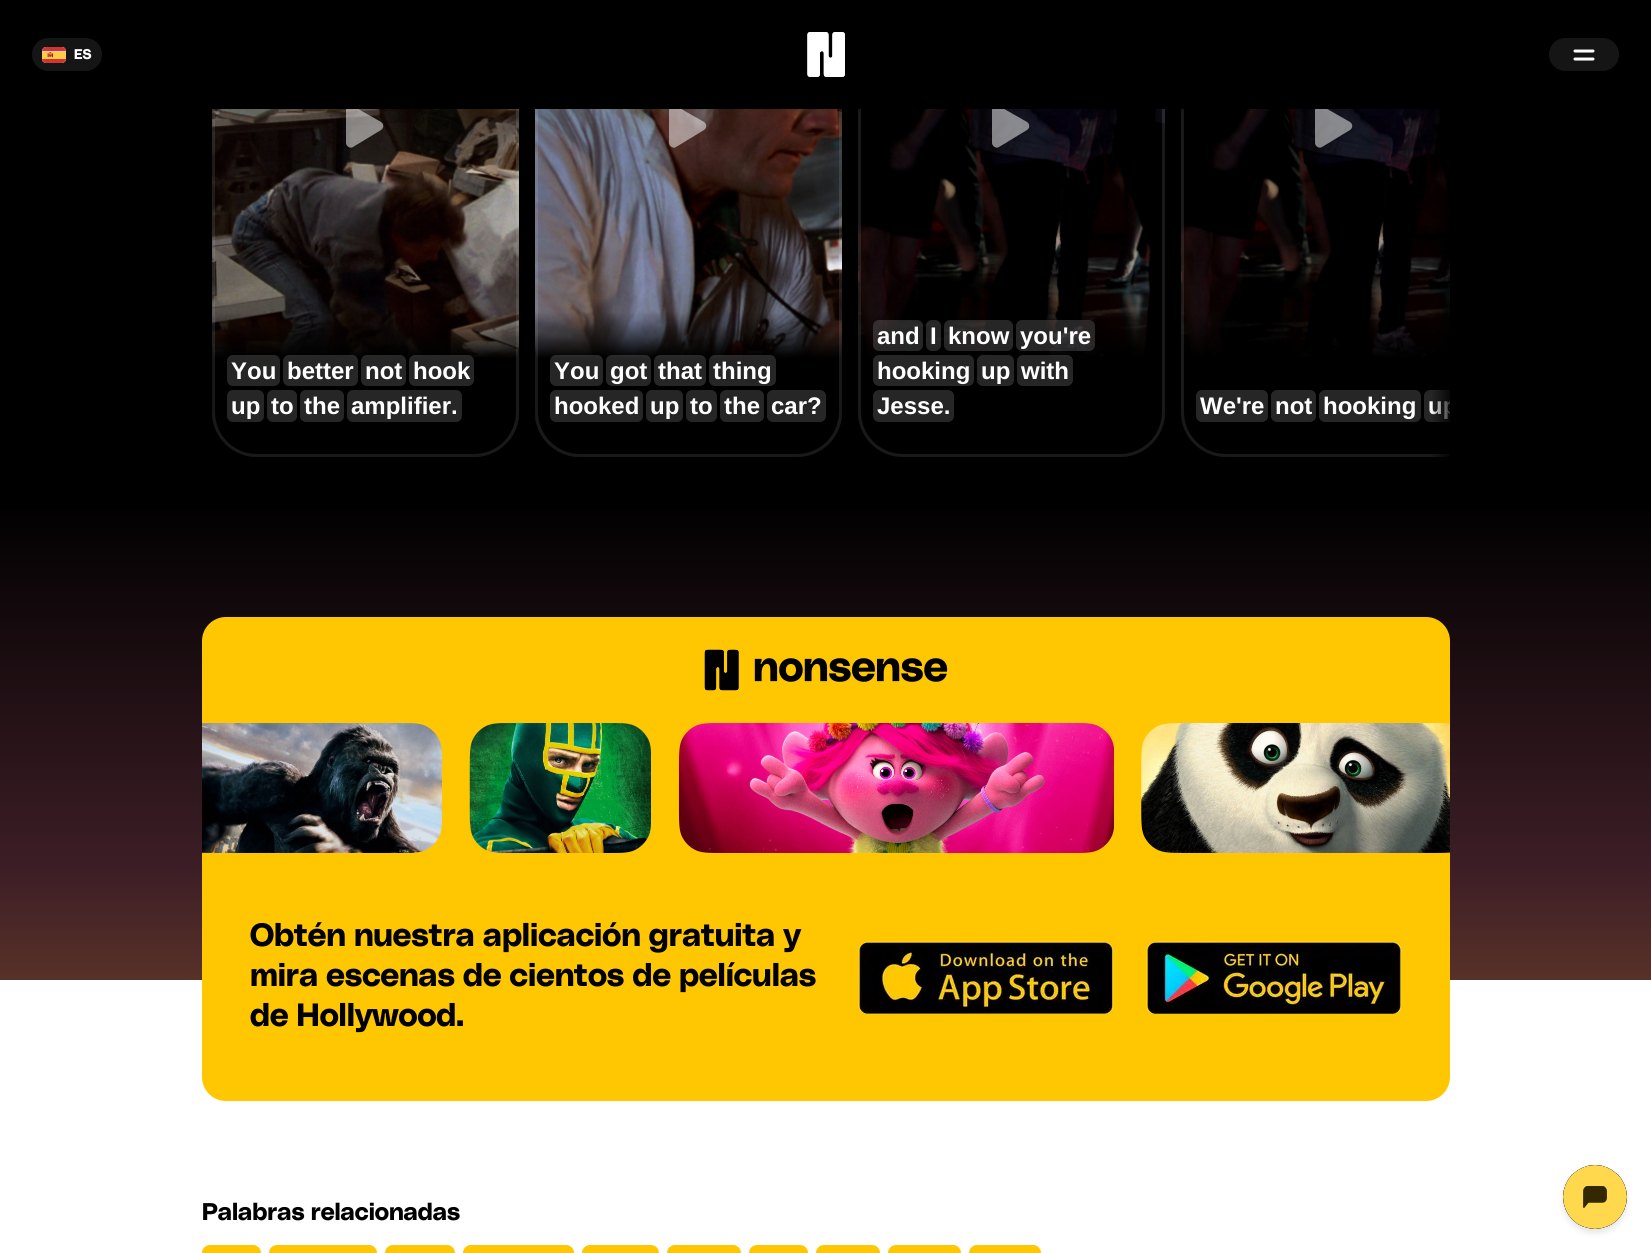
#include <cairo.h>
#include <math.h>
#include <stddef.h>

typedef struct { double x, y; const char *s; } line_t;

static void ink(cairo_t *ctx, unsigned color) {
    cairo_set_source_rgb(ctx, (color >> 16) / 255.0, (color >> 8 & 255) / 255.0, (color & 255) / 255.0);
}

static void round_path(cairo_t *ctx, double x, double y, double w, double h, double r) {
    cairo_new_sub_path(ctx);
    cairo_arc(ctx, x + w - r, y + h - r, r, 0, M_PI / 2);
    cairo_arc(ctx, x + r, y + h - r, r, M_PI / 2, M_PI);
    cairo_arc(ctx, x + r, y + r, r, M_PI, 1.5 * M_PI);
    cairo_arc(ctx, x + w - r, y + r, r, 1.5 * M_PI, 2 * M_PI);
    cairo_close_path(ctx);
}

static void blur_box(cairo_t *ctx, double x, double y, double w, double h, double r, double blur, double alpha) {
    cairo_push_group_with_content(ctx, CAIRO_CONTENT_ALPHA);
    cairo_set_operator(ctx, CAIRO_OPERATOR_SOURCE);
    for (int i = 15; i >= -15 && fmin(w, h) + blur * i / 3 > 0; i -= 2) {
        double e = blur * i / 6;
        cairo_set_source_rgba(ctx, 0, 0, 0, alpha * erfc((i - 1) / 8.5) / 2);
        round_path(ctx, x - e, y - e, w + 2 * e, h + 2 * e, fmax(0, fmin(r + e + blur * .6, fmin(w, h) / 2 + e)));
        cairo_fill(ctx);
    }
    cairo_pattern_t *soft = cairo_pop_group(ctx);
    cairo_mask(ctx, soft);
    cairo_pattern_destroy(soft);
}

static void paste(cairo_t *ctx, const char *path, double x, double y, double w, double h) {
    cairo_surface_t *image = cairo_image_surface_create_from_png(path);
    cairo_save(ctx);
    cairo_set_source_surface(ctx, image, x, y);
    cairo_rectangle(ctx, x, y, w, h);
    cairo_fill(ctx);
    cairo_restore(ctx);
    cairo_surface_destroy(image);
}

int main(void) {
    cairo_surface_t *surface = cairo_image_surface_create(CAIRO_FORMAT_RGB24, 1651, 1253);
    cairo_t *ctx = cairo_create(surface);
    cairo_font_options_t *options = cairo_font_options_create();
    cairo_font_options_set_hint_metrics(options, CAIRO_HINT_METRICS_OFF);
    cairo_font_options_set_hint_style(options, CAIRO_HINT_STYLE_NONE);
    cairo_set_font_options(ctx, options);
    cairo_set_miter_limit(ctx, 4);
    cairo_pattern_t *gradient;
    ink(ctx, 0x000000);
    cairo_paint(ctx);
    round_path(ctx, 213.5, -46.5, 304, 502, 43.5);
    ink(ctx, 0x1A1A1A);
    cairo_set_line_width(ctx, 3);
    cairo_stroke(ctx);
    paste(ctx, "media/4.png", 212, 412, 307, 45);
    ink(ctx, 0x000000);
    round_path(ctx, 212, -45, 307, 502, 45);
    cairo_fill(ctx);
    paste(ctx, "media/5.png", 212, 109, 307, 249);
    gradient = cairo_pattern_create_linear(365, -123, 366, 457);
    cairo_pattern_add_color_stop_rgba(gradient, 0.1, 0, 0, 0, 0.15);
    cairo_pattern_add_color_stop_rgba(gradient, 0.75, 0, 0, 0, 0);
    cairo_pattern_add_color_stop_rgba(gradient, 0.83, 0, 0, 0, 1);
    cairo_set_source(ctx, gradient);
    cairo_pattern_destroy(gradient);
    round_path(ctx, 212, -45, 307, 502, 45);
    cairo_fill(ctx);
    round_path(ctx, 213.5, -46.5, 304, 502, 43.5);
    cairo_set_source_rgba(ctx, 1, 1, 1, 0.1);
    cairo_stroke(ctx);
    cairo_set_source_rgba(ctx, 1, 1, 1, 0.5);
    cairo_new_path(ctx);
    cairo_move_to(ctx, 381, 122);
    cairo_curve_to(ctx, 384, 124, 384, 128, 381, 130);
    cairo_line_to(ctx, 353, 147);
    cairo_curve_to(ctx, 350, 149, 346, 146, 346, 143);
    cairo_line_to(ctx, 346, 110);
    cairo_curve_to(ctx, 346, 106, 350, 104, 353, 106);
    cairo_close_path(ctx);
    cairo_fill(ctx);
    round_path(ctx, 536.5, -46.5, 304, 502, 43.5);
    ink(ctx, 0x1A1A1A);
    cairo_stroke(ctx);
    paste(ctx, "media/6.png", 535, 412, 307, 45);
    ink(ctx, 0x000000);
    round_path(ctx, 535, -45, 307, 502, 45);
    cairo_fill(ctx);
    paste(ctx, "media/7.png", 535, 109, 307, 249);
    gradient = cairo_pattern_create_linear(689, -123, 689, 457);
    cairo_pattern_add_color_stop_rgba(gradient, 0.1, 0, 0, 0, 0.15);
    cairo_pattern_add_color_stop_rgba(gradient, 0.75, 0, 0, 0, 0);
    cairo_pattern_add_color_stop_rgba(gradient, 0.83, 0, 0, 0, 1);
    cairo_set_source(ctx, gradient);
    cairo_pattern_destroy(gradient);
    round_path(ctx, 535, -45, 307, 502, 45);
    cairo_fill(ctx);
    round_path(ctx, 536.5, -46.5, 304, 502, 43.5);
    cairo_set_source_rgba(ctx, 1, 1, 1, 0.1);
    cairo_stroke(ctx);
    cairo_set_source_rgba(ctx, 1, 1, 1, 0.5);
    cairo_new_path(ctx);
    cairo_move_to(ctx, 704, 122);
    cairo_curve_to(ctx, 707, 124, 707, 128, 704, 130);
    cairo_line_to(ctx, 676, 147);
    cairo_curve_to(ctx, 673, 149, 669, 146, 669, 143);
    cairo_line_to(ctx, 669, 110);
    cairo_curve_to(ctx, 669, 106, 673, 104, 676, 106);
    cairo_close_path(ctx);
    cairo_fill(ctx);
    round_path(ctx, 859.5, -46.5, 304, 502, 43.5);
    ink(ctx, 0x1A1A1A);
    cairo_stroke(ctx);
    paste(ctx, "media/8.png", 858, 412, 307, 45);
    ink(ctx, 0x000000);
    round_path(ctx, 858, -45, 307, 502, 45);
    cairo_fill(ctx);
    paste(ctx, "media/9.png", 858, 109, 307, 249);
    gradient = cairo_pattern_create_linear(1012, -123, 1012, 457);
    cairo_pattern_add_color_stop_rgba(gradient, 0.1, 0, 0, 0, 0.15);
    cairo_pattern_add_color_stop_rgba(gradient, 0.75, 0, 0, 0, 0);
    cairo_pattern_add_color_stop_rgba(gradient, 0.83, 0, 0, 0, 1);
    cairo_set_source(ctx, gradient);
    cairo_pattern_destroy(gradient);
    round_path(ctx, 858, -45, 307, 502, 45);
    cairo_fill(ctx);
    round_path(ctx, 859.5, -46.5, 304, 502, 43.5);
    cairo_set_source_rgba(ctx, 1, 1, 1, 0.1);
    cairo_stroke(ctx);
    cairo_set_source_rgba(ctx, 1, 1, 1, 0.5);
    cairo_new_path(ctx);
    cairo_move_to(ctx, 1027, 122);
    cairo_curve_to(ctx, 1030, 124, 1030, 128, 1027, 130);
    cairo_line_to(ctx, 999, 147);
    cairo_curve_to(ctx, 996, 149, 992, 146, 992, 143);
    cairo_line_to(ctx, 992, 110);
    cairo_curve_to(ctx, 992, 106, 996, 104, 999, 106);
    cairo_close_path(ctx);
    cairo_fill(ctx);
    cairo_save(ctx);
    cairo_rectangle(ctx, 202, 0, 1248, 473);
    cairo_clip(ctx);
    round_path(ctx, 1182.5, -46.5, 304, 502, 43.5);
    ink(ctx, 0x1A1A1A);
    cairo_stroke(ctx);
    cairo_restore(ctx);
    paste(ctx, "media/10.png", 1181, 412, 269, 45);
    cairo_save(ctx);
    cairo_rectangle(ctx, 202, 0, 1248, 473);
    cairo_clip(ctx);
    ink(ctx, 0x000000);
    round_path(ctx, 1181, -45, 307, 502, 45);
    cairo_fill(ctx);
    cairo_restore(ctx);
    paste(ctx, "media/11.png", 1181, 109, 269, 249);
    cairo_save(ctx);
    cairo_rectangle(ctx, 202, 0, 1248, 473);
    cairo_clip(ctx);
    gradient = cairo_pattern_create_linear(1335, -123, 1335, 457);
    cairo_pattern_add_color_stop_rgba(gradient, 0.1, 0, 0, 0, 0.15);
    cairo_pattern_add_color_stop_rgba(gradient, 0.75, 0, 0, 0, 0);
    cairo_pattern_add_color_stop_rgba(gradient, 0.83, 0, 0, 0, 1);
    cairo_set_source(ctx, gradient);
    cairo_pattern_destroy(gradient);
    round_path(ctx, 1181, -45, 307, 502, 45);
    cairo_fill(ctx);
    round_path(ctx, 1182.5, -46.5, 304, 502, 43.5);
    cairo_set_source_rgba(ctx, 1, 1, 1, 0.1);
    cairo_stroke(ctx);
    cairo_restore(ctx);
    cairo_new_path(ctx);
    cairo_move_to(ctx, 1350, 122);
    cairo_curve_to(ctx, 1353, 124, 1353, 128, 1350, 130);
    cairo_line_to(ctx, 1322, 147);
    cairo_curve_to(ctx, 1319, 149, 1315, 146, 1315, 143);
    cairo_line_to(ctx, 1315, 110);
    cairo_curve_to(ctx, 1315, 106, 1319, 104, 1322, 106);
    cairo_close_path(ctx);
    cairo_fill(ctx);
    ink(ctx, 0x000000);
    cairo_rectangle(ctx, 212, 0, 1115, 109);
    cairo_fill(ctx);
    ink(ctx, 0x151515);
    round_path(ctx, 32, 38, 70, 33, 16.5);
    cairo_fill(ctx);
    paste(ctx, "media/1.png", 42, 47, 24, 16);
    cairo_select_font_face(ctx, "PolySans", CAIRO_FONT_SLANT_NORMAL, CAIRO_FONT_WEIGHT_BOLD);
    cairo_set_font_size(ctx, 14);
    ink(ctx, 0xFFFFFF);
    cairo_move_to(ctx, 74, 59);
    cairo_show_text(ctx, "ES");
    paste(ctx, "media/2.png", 807, 32, 38, 45);
    ink(ctx, 0x151515);
    round_path(ctx, 1549, 38, 70, 33, 16.5);
    cairo_fill(ctx);
    paste(ctx, "media/3.png", 1573, 49, 22, 12);
    gradient = cairo_pattern_create_linear(191, 175, 215, 175);
    cairo_pattern_add_color_stop_rgba(gradient, 0, 0, 0, 0, 1);
    cairo_pattern_add_color_stop_rgba(gradient, 1, 0, 0, 0, 0);
    cairo_set_source(ctx, gradient);
    cairo_pattern_destroy(gradient);
    cairo_rectangle(ctx, 212, 109, 2, 304);
    cairo_fill(ctx);
    ink(ctx, 0x262626);
    cairo_new_path(ctx);
    cairo_move_to(ctx, 1430, 390);
    cairo_line_to(ctx, 1450, 390);
    cairo_line_to(ctx, 1450, 422);
    cairo_line_to(ctx, 1430, 422);
    cairo_curve_to(ctx, 1426.5, 422, 1424, 419.5, 1424, 416);
    cairo_line_to(ctx, 1424, 396);
    cairo_curve_to(ctx, 1424, 392.5, 1426.5, 390, 1430, 390);
    cairo_close_path(ctx);
    cairo_fill(ctx);
    cairo_save(ctx);
    cairo_rectangle(ctx, 202, 0, 1248, 473);
    cairo_clip(ctx);
    cairo_select_font_face(ctx, "Liberation Sans", CAIRO_FONT_SLANT_NORMAL, CAIRO_FONT_WEIGHT_BOLD);
    cairo_set_font_size(ctx, 24);
    ink(ctx, 0xFFFFFF);
    cairo_move_to(ctx, 1428, 414);
    cairo_show_text(ctx, "up");
    cairo_restore(ctx);
    gradient = cairo_pattern_create_linear(1455, 175, 1431, 175);
    cairo_pattern_add_color_stop_rgba(gradient, 0, 0, 0, 0, 1);
    cairo_pattern_add_color_stop_rgba(gradient, 1, 0, 0, 0, 0);
    cairo_set_source(ctx, gradient);
    cairo_pattern_destroy(gradient);
    cairo_rectangle(ctx, 1432, 110, 18, 347);
    cairo_fill(ctx);
    cairo_set_source_rgba(ctx, 1, 1, 1, 0.15);
    round_path(ctx, 227, 355, 53, 31, 6);
    cairo_fill(ctx);
    cairo_select_font_face(ctx, "Liberation Sans", CAIRO_FONT_SLANT_NORMAL, CAIRO_FONT_WEIGHT_BOLD);
    cairo_set_font_size(ctx, 24);
    ink(ctx, 0xFFFFFF);
    cairo_move_to(ctx, 231, 379);
    cairo_show_text(ctx, "You");
    cairo_set_source_rgba(ctx, 1, 1, 1, 0.15);
    round_path(ctx, 283, 355, 75, 31, 6);
    cairo_fill(ctx);
    ink(ctx, 0xFFFFFF);
    cairo_move_to(ctx, 287, 379);
    cairo_show_text(ctx, "better");
    cairo_set_source_rgba(ctx, 1, 1, 1, 0.15);
    round_path(ctx, 361, 355, 45, 31, 6);
    cairo_fill(ctx);
    ink(ctx, 0xFFFFFF);
    cairo_move_to(ctx, 365, 379);
    cairo_show_text(ctx, "not");
    cairo_set_source_rgba(ctx, 1, 1, 1, 0.15);
    round_path(ctx, 409, 355, 65, 31, 6);
    cairo_fill(ctx);
    ink(ctx, 0xFFFFFF);
    cairo_move_to(ctx, 413, 379);
    cairo_show_text(ctx, "hook");
    ink(ctx, 0x262626);
    round_path(ctx, 227, 390, 37, 32, 6);
    cairo_fill(ctx);
    ink(ctx, 0xFFFFFF);
    cairo_move_to(ctx, 231, 414);
    cairo_show_text(ctx, "up");
    ink(ctx, 0x262626);
    round_path(ctx, 267, 390, 30, 32, 6);
    cairo_fill(ctx);
    ink(ctx, 0xFFFFFF);
    cairo_move_to(ctx, 271, 414);
    cairo_show_text(ctx, "to");
    ink(ctx, 0x262626);
    round_path(ctx, 300, 390, 44, 32, 6);
    cairo_fill(ctx);
    ink(ctx, 0xFFFFFF);
    cairo_move_to(ctx, 304, 414);
    cairo_show_text(ctx, "the");
    ink(ctx, 0x262626);
    round_path(ctx, 347, 390, 115, 32, 6);
    cairo_fill(ctx);
    ink(ctx, 0xFFFFFF);
    cairo_move_to(ctx, 351, 414);
    cairo_show_text(ctx, "amplifier.");
    cairo_set_source_rgba(ctx, 1, 1, 1, 0.15);
    round_path(ctx, 550, 355, 53, 31, 6);
    cairo_fill(ctx);
    ink(ctx, 0xFFFFFF);
    cairo_move_to(ctx, 554, 379);
    cairo_show_text(ctx, "You");
    cairo_set_source_rgba(ctx, 1, 1, 1, 0.15);
    round_path(ctx, 606, 355, 45, 31, 6);
    cairo_fill(ctx);
    ink(ctx, 0xFFFFFF);
    cairo_move_to(ctx, 610, 379);
    cairo_show_text(ctx, "got");
    cairo_set_source_rgba(ctx, 1, 1, 1, 0.15);
    round_path(ctx, 654, 355, 52, 31, 6);
    cairo_fill(ctx);
    ink(ctx, 0xFFFFFF);
    cairo_move_to(ctx, 658, 379);
    cairo_show_text(ctx, "that");
    cairo_set_source_rgba(ctx, 1, 1, 1, 0.15);
    round_path(ctx, 709, 355, 67, 31, 6);
    cairo_fill(ctx);
    ink(ctx, 0xFFFFFF);
    cairo_move_to(ctx, 713, 379);
    cairo_show_text(ctx, "thing");
    ink(ctx, 0x262626);
    round_path(ctx, 550, 390, 93, 32, 6);
    cairo_fill(ctx);
    ink(ctx, 0xFFFFFF);
    cairo_move_to(ctx, 554, 414);
    cairo_show_text(ctx, "hooked");
    ink(ctx, 0x262626);
    round_path(ctx, 646, 390, 37, 32, 6);
    cairo_fill(ctx);
    ink(ctx, 0xFFFFFF);
    cairo_move_to(ctx, 650, 414);
    cairo_show_text(ctx, "up");
    ink(ctx, 0x262626);
    round_path(ctx, 686, 390, 31, 32, 6);
    cairo_fill(ctx);
    ink(ctx, 0xFFFFFF);
    cairo_move_to(ctx, 690, 414);
    cairo_show_text(ctx, "to");
    ink(ctx, 0x262626);
    round_path(ctx, 720, 390, 44, 32, 6);
    cairo_fill(ctx);
    ink(ctx, 0xFFFFFF);
    cairo_move_to(ctx, 724, 414);
    cairo_show_text(ctx, "the");
    ink(ctx, 0x262626);
    round_path(ctx, 767, 390, 59, 32, 6);
    cairo_fill(ctx);
    ink(ctx, 0xFFFFFF);
    cairo_move_to(ctx, 771, 414);
    cairo_show_text(ctx, "car?");
    cairo_set_source_rgba(ctx, 1, 1, 1, 0.15);
    round_path(ctx, 873, 320, 50, 31, 6);
    cairo_fill(ctx);
    ink(ctx, 0xFFFFFF);
    cairo_move_to(ctx, 877, 344);
    cairo_show_text(ctx, "and");
    cairo_set_source_rgba(ctx, 1, 1, 1, 0.15);
    round_path(ctx, 926, 320, 15, 31, 6);
    cairo_fill(ctx);
    ink(ctx, 0xFFFFFF);
    cairo_move_to(ctx, 930, 344);
    cairo_show_text(ctx, "I");
    cairo_set_source_rgba(ctx, 1, 1, 1, 0.15);
    round_path(ctx, 944, 320, 69, 31, 6);
    cairo_fill(ctx);
    ink(ctx, 0xFFFFFF);
    cairo_move_to(ctx, 948, 344);
    cairo_show_text(ctx, "know");
    cairo_set_source_rgba(ctx, 1, 1, 1, 0.15);
    round_path(ctx, 1016, 320, 79, 31, 6);
    cairo_fill(ctx);
    ink(ctx, 0xFFFFFF);
    cairo_move_to(ctx, 1020, 344);
    cairo_show_text(ctx, "you're");
    ink(ctx, 0x262626);
    round_path(ctx, 873, 355, 101, 31, 6);
    cairo_fill(ctx);
    ink(ctx, 0xFFFFFF);
    cairo_move_to(ctx, 877, 379);
    cairo_show_text(ctx, "hooking");
    ink(ctx, 0x262626);
    round_path(ctx, 977, 355, 37, 31, 6);
    cairo_fill(ctx);
    ink(ctx, 0xFFFFFF);
    cairo_move_to(ctx, 981, 379);
    cairo_show_text(ctx, "up");
    cairo_set_source_rgba(ctx, 1, 1, 1, 0.15);
    round_path(ctx, 1017, 355, 56, 31, 6);
    cairo_fill(ctx);
    ink(ctx, 0xFFFFFF);
    cairo_move_to(ctx, 1021, 379);
    cairo_show_text(ctx, "with");
    ink(ctx, 0x262626);
    round_path(ctx, 873, 390, 81, 32, 6);
    cairo_fill(ctx);
    ink(ctx, 0xFFFFFF);
    cairo_move_to(ctx, 877, 414);
    cairo_show_text(ctx, "Jesse.");
    ink(ctx, 0x262626);
    round_path(ctx, 1196, 390, 72, 32, 6);
    cairo_fill(ctx);
    ink(ctx, 0xFFFFFF);
    cairo_move_to(ctx, 1200, 414);
    cairo_show_text(ctx, "We're");
    ink(ctx, 0x262626);
    round_path(ctx, 1271, 390, 45, 32, 6);
    cairo_fill(ctx);
    ink(ctx, 0xFFFFFF);
    cairo_move_to(ctx, 1275, 414);
    cairo_show_text(ctx, "not");
    ink(ctx, 0x262626);
    round_path(ctx, 1319, 390, 102, 32, 6);
    cairo_fill(ctx);
    ink(ctx, 0xFFFFFF);
    cairo_move_to(ctx, 1323, 414);
    cairo_show_text(ctx, "hooking");
    gradient = cairo_pattern_create_linear(826, 980, 826, 496);
    cairo_pattern_add_color_stop_rgba(gradient, 0, 0.345, 0.192, 0.157, 1);
    cairo_pattern_add_color_stop_rgba(gradient, 0.24, 0.235, 0.114, 0.149, 1);
    cairo_pattern_add_color_stop_rgba(gradient, 1, 0, 0, 0, 1);
    cairo_set_source(ctx, gradient);
    cairo_pattern_destroy(gradient);
    cairo_rectangle(ctx, 0, 511, 1651, 469);
    cairo_fill(ctx);
    ink(ctx, 0xFFFFFF);
    cairo_rectangle(ctx, 0, 980, 1651, 273);
    cairo_fill(ctx);
    ink(ctx, 0xFFC702);
    round_path(ctx, 202, 617, 1248, 484, 24);
    cairo_fill(ctx);
    paste(ctx, "media/12.png", 704, 649, 244, 42);
    paste(ctx, "media/13.png", 202, 723, 240, 130);
    paste(ctx, "media/14.png", 469, 723, 182, 130);
    paste(ctx, "media/15.png", 678, 723, 436, 130);
    paste(ctx, "media/16.png", 1141, 723, 309, 130);
    cairo_select_font_face(ctx, "PolySans", CAIRO_FONT_SLANT_NORMAL, CAIRO_FONT_WEIGHT_BOLD);
    cairo_set_font_size(ctx, 32);
    ink(ctx, 0x000000);
    {
        static const line_t items[] = {
            {250, 946, "Obtén nuestra aplicación gratuita y"},
            {250, 986, "mira escenas de cientos de películas"},
            {250, 1026, "de Hollywood."},
        };
        for (size_t i = 0; i < sizeof items / sizeof *items; i++) {
            cairo_move_to(ctx, items[i].x, items[i].y);
            cairo_show_text(ctx, items[i].s);
        }
    }
    paste(ctx, "media/17.png", 858, 941, 256, 73);
    paste(ctx, "media/18.png", 1146, 941, 256, 73);
    cairo_set_font_size(ctx, 24);
    cairo_move_to(ctx, 202, 1220);
    cairo_show_text(ctx, "Palabras relacionadas");
    ink(ctx, 0xFFC702);
    round_path(ctx, 202, 1245, 59, 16, 8);
    cairo_fill(ctx);
    round_path(ctx, 269, 1245, 108, 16, 8);
    cairo_fill(ctx);
    round_path(ctx, 385, 1245, 70, 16, 8);
    cairo_fill(ctx);
    round_path(ctx, 463, 1245, 111, 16, 8);
    cairo_fill(ctx);
    round_path(ctx, 582, 1245, 77, 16, 8);
    cairo_fill(ctx);
    round_path(ctx, 667, 1245, 74, 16, 8);
    cairo_fill(ctx);
    round_path(ctx, 749, 1245, 59, 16, 8);
    cairo_fill(ctx);
    round_path(ctx, 816, 1245, 64, 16, 8);
    cairo_fill(ctx);
    round_path(ctx, 888, 1245, 73, 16, 8);
    cairo_fill(ctx);
    round_path(ctx, 969, 1245, 72, 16, 8);
    cairo_fill(ctx);
    ink(ctx, 0x000000);
    blur_box(ctx, 1563, 1169, 64, 64, 32, 3, 0.1);
    paste(ctx, "media/19.png", 1563, 1165, 64, 64);
    cairo_surface_write_to_png(surface, "image.png");
    cairo_font_options_destroy(options);
    cairo_destroy(ctx);
    cairo_surface_destroy(surface);
    return 0;
}
